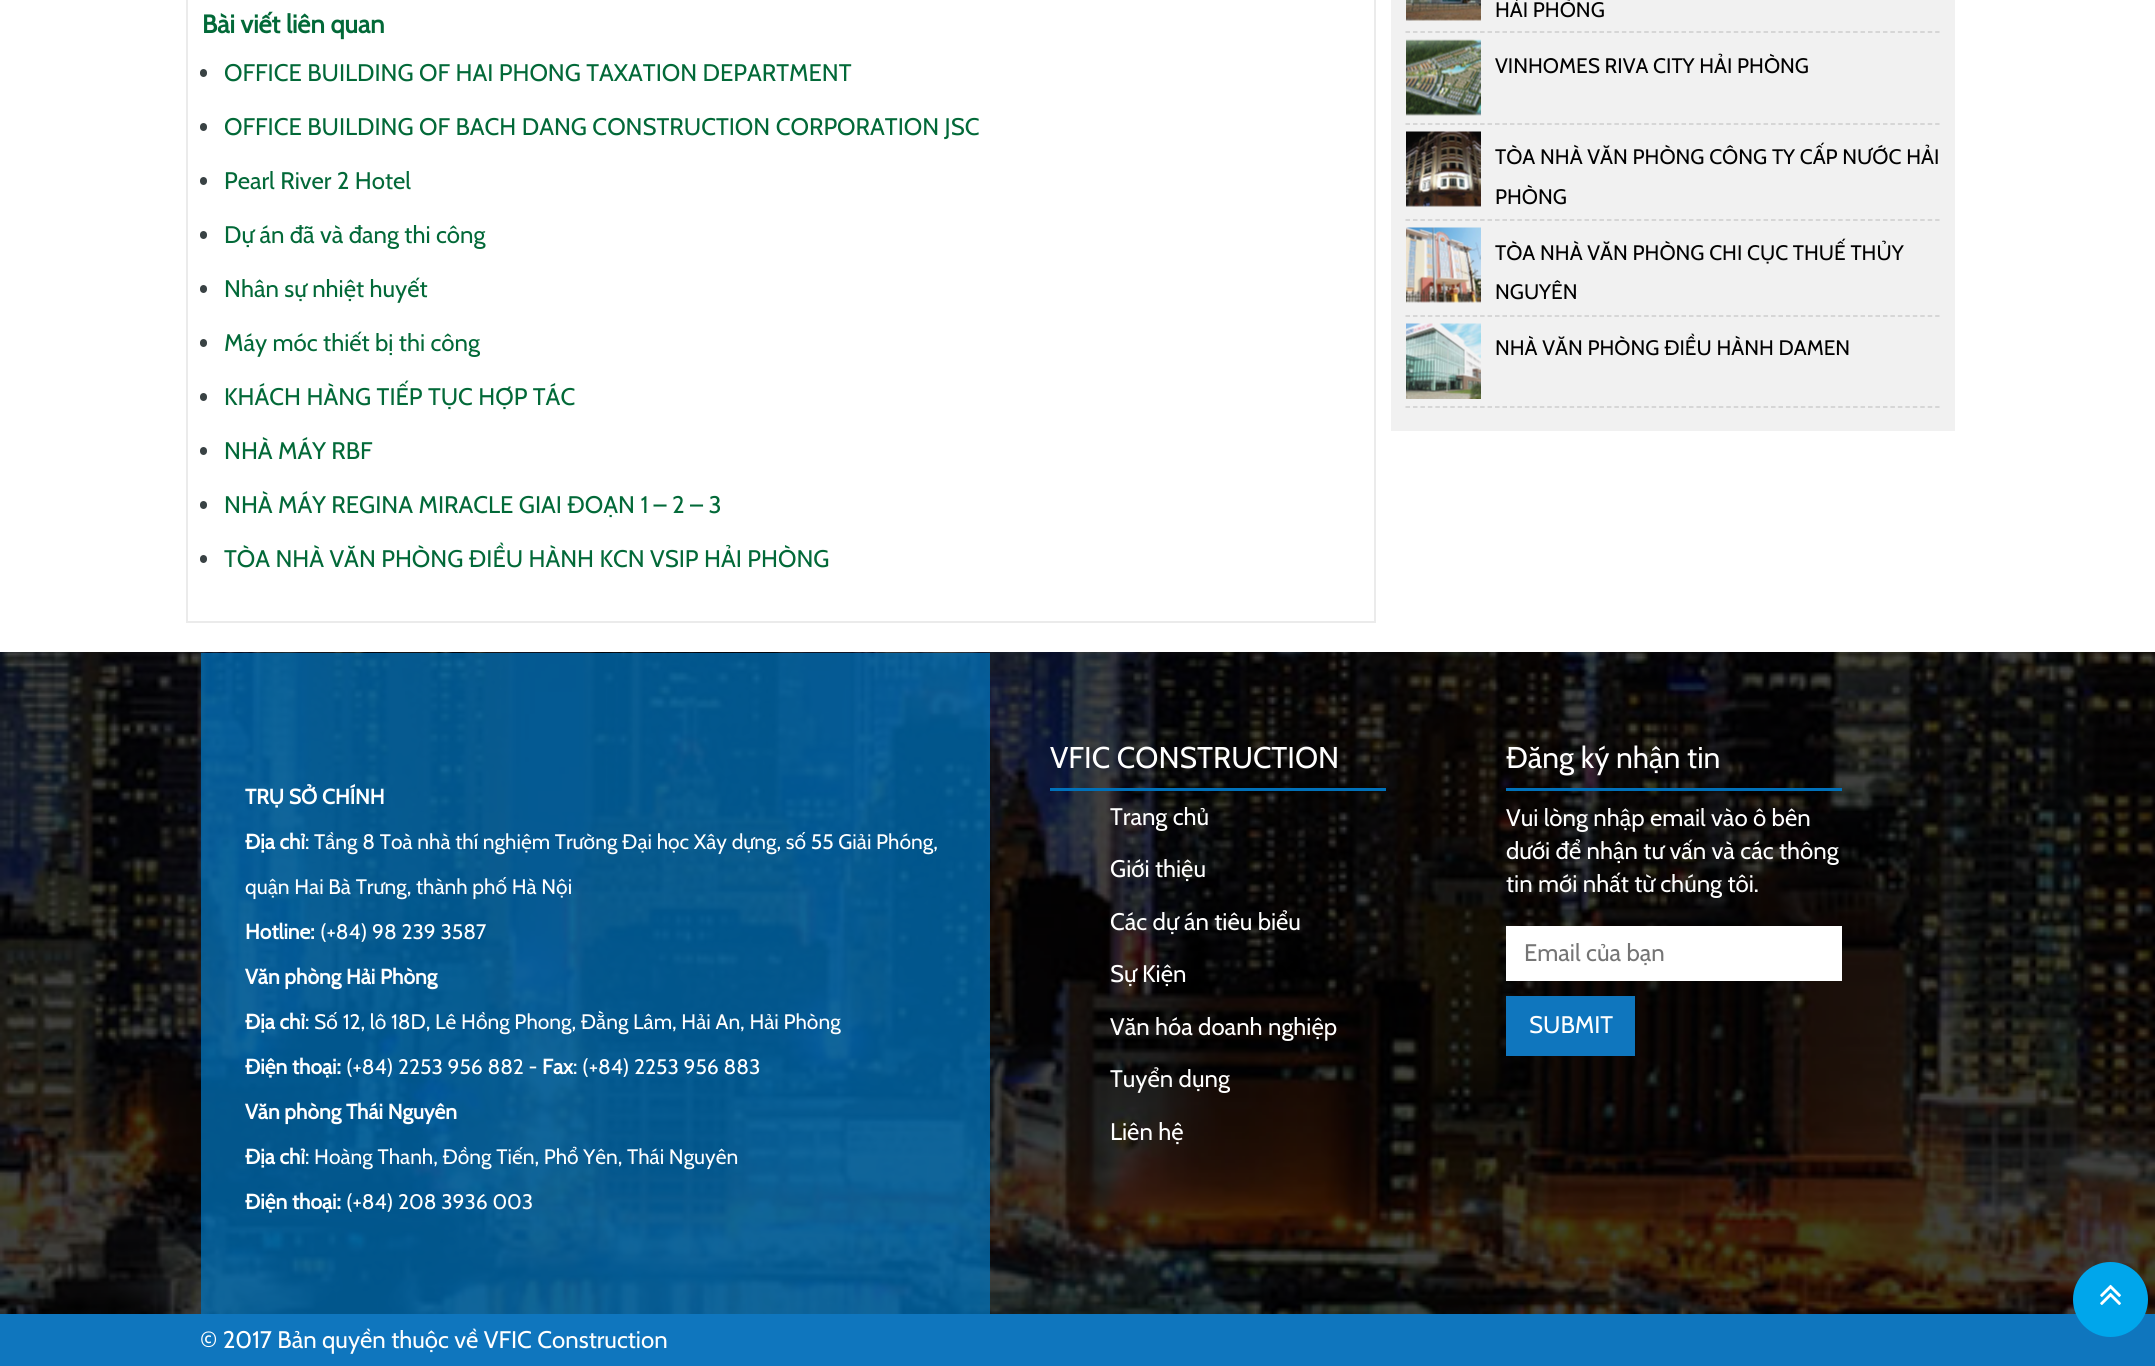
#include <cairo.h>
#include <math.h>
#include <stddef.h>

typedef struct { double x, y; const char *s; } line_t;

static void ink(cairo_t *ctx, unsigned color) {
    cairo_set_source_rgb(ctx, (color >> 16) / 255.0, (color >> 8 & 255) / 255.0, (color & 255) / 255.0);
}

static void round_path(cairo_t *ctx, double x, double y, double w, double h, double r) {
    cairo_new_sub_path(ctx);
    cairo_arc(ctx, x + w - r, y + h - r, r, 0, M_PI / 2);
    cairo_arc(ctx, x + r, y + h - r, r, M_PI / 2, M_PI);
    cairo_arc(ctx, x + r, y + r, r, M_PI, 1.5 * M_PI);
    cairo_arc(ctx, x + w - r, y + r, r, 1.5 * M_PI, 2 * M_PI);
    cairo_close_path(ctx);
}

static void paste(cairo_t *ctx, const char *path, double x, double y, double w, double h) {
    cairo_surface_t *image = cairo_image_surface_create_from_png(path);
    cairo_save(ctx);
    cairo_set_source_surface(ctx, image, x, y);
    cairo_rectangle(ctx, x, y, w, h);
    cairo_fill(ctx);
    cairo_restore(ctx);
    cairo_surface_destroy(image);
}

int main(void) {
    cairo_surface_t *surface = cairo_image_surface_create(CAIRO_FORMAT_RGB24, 2155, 1366);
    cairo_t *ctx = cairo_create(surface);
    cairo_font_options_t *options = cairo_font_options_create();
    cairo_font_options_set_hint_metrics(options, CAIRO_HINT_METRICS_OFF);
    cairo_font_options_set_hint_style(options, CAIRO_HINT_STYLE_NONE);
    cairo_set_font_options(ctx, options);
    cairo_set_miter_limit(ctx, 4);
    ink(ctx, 0xFFFFFF);
    cairo_paint(ctx);
    cairo_rectangle(ctx, 187, -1, 1188, 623);
    ink(ctx, 0xEBEBEB);
    cairo_stroke(ctx);
    cairo_select_font_face(ctx, "Cabin", CAIRO_FONT_SLANT_NORMAL, CAIRO_FONT_WEIGHT_BOLD);
    cairo_set_font_size(ctx, 25.5);
    ink(ctx, 0x026938);
    cairo_move_to(ctx, 202, 33);
    cairo_show_text(ctx, "Bài viết liên quan");
    ink(ctx, 0x394244);
    round_path(ctx, 200, 69, 7, 8, 3.5);
    cairo_fill(ctx);
    cairo_select_font_face(ctx, "Cabin", CAIRO_FONT_SLANT_NORMAL, CAIRO_FONT_WEIGHT_NORMAL);
    cairo_set_font_size(ctx, 24);
    ink(ctx, 0x026938);
    cairo_move_to(ctx, 224, 81);
    cairo_show_text(ctx, "OFFICE BUILDING OF HAI PHONG TAXATION DEPARTMENT");
    ink(ctx, 0x394244);
    round_path(ctx, 200, 123, 7, 8, 3.5);
    cairo_fill(ctx);
    ink(ctx, 0x026938);
    cairo_move_to(ctx, 224, 135);
    cairo_show_text(ctx, "OFFICE BUILDING OF BACH DANG CONSTRUCTION CORPORATION JSC");
    ink(ctx, 0x394244);
    round_path(ctx, 200, 177, 7, 8, 3.5);
    cairo_fill(ctx);
    ink(ctx, 0x026938);
    cairo_move_to(ctx, 224, 189);
    cairo_show_text(ctx, "Pearl River 2 Hotel");
    ink(ctx, 0x394244);
    round_path(ctx, 200, 231, 7, 8, 3.5);
    cairo_fill(ctx);
    ink(ctx, 0x026938);
    cairo_move_to(ctx, 224, 243);
    cairo_show_text(ctx, "Dự án đã và đang thi công");
    ink(ctx, 0x394244);
    round_path(ctx, 200, 285, 7, 8, 3.5);
    cairo_fill(ctx);
    ink(ctx, 0x026938);
    cairo_move_to(ctx, 224, 297);
    cairo_show_text(ctx, "Nhân sự nhiệt huyết");
    ink(ctx, 0x394244);
    round_path(ctx, 200, 339, 7, 8, 3.5);
    cairo_fill(ctx);
    ink(ctx, 0x026938);
    cairo_move_to(ctx, 224, 351);
    cairo_show_text(ctx, "Máy móc thiết bị thi công");
    ink(ctx, 0x394244);
    round_path(ctx, 200, 393, 7, 8, 3.5);
    cairo_fill(ctx);
    ink(ctx, 0x026938);
    cairo_move_to(ctx, 224, 405);
    cairo_show_text(ctx, "KHÁCH HÀNG TIẾP TỤC HỢP TÁC");
    ink(ctx, 0x394244);
    round_path(ctx, 200, 447, 7, 8, 3.5);
    cairo_fill(ctx);
    ink(ctx, 0x026938);
    cairo_move_to(ctx, 224, 459);
    cairo_show_text(ctx, "NHÀ MÁY RBF");
    ink(ctx, 0x394244);
    round_path(ctx, 200, 501, 7, 8, 3.5);
    cairo_fill(ctx);
    ink(ctx, 0x026938);
    cairo_move_to(ctx, 224, 513);
    cairo_show_text(ctx, "NHÀ MÁY REGINA MIRACLE GIAI ĐOẠN 1 – 2 – 3");
    ink(ctx, 0x394244);
    round_path(ctx, 200, 555, 7, 8, 3.5);
    cairo_fill(ctx);
    ink(ctx, 0x026938);
    cairo_move_to(ctx, 224, 567);
    cairo_show_text(ctx, "TÒA NHÀ VĂN PHÒNG ĐIỀU HÀNH KCN VSIP HẢI PHÒNG");
    ink(ctx, 0xF1F1F1);
    cairo_rectangle(ctx, 1391, 0, 564, 431);
    cairo_fill(ctx);
    cairo_new_path(ctx);
    cairo_move_to(ctx, 1405.5, 32);
    cairo_line_to(ctx, 1939.5, 32);
    ink(ctx, 0xCCCCCC);
    cairo_set_line_width(ctx, 1.5);
    cairo_set_dash(ctx, (double[]){4.5, 2.96}, 2, 0);
    cairo_stroke(ctx);
    paste(ctx, "media/1.png", 1406, 0, 75, 21);
    cairo_set_font_size(ctx, 21);
    ink(ctx, 0x010101);
    cairo_move_to(ctx, 1495, 17);
    cairo_show_text(ctx, "HẢI PHÒNG");
    cairo_new_path(ctx);
    cairo_move_to(ctx, 1405.5, 124);
    cairo_line_to(ctx, 1939.5, 124);
    ink(ctx, 0xCCCCCC);
    cairo_stroke(ctx);
    paste(ctx, "media/2.png", 1406, 39, 75, 77);
    ink(ctx, 0x010101);
    cairo_move_to(ctx, 1495, 73);
    cairo_show_text(ctx, "VINHOMES RIVA CITY HẢI PHÒNG");
    cairo_new_path(ctx);
    cairo_move_to(ctx, 1405.5, 220);
    cairo_line_to(ctx, 1939.5, 220);
    ink(ctx, 0xCCCCCC);
    cairo_stroke(ctx);
    paste(ctx, "media/3.png", 1406, 131, 75, 76);
    ink(ctx, 0x010101);
    cairo_move_to(ctx, 1495, 164);
    cairo_show_text(ctx, "TÒA NHÀ VĂN PHÒNG CÔNG TY CẤP NƯỚC HẢI");
    cairo_move_to(ctx, 1495, 204);
    cairo_show_text(ctx, "PHÒNG");
    cairo_new_path(ctx);
    cairo_move_to(ctx, 1405.5, 316);
    cairo_line_to(ctx, 1939.5, 316);
    ink(ctx, 0xCCCCCC);
    cairo_stroke(ctx);
    paste(ctx, "media/4.png", 1406, 227, 75, 76);
    ink(ctx, 0x010101);
    cairo_move_to(ctx, 1495, 260);
    cairo_show_text(ctx, "TÒA NHÀ VĂN PHÒNG CHI CỤC THUẾ THỦY");
    cairo_move_to(ctx, 1495, 299);
    cairo_show_text(ctx, "NGUYÊN");
    cairo_new_path(ctx);
    cairo_move_to(ctx, 1405.5, 407);
    cairo_line_to(ctx, 1939.5, 407);
    ink(ctx, 0xCCCCCC);
    cairo_stroke(ctx);
    paste(ctx, "media/5.png", 1406, 323, 75, 76);
    ink(ctx, 0x010101);
    cairo_move_to(ctx, 1495, 355);
    cairo_show_text(ctx, "NHÀ VĂN PHÒNG ĐIỀU HÀNH DAMEN");
    paste(ctx, "media/6.png", 0, 652, 2155, 662);
    cairo_set_source_rgba(ctx, 0, 0.443, 0.729, 0.75);
    cairo_rectangle(ctx, 201, 653, 789, 661);
    cairo_fill(ctx);
    cairo_select_font_face(ctx, "Cabin", CAIRO_FONT_SLANT_NORMAL, CAIRO_FONT_WEIGHT_BOLD);
    ink(ctx, 0xFFFFFF);
    cairo_move_to(ctx, 245, 804);
    cairo_show_text(ctx, "TRỤ SỞ CHÍNH");
    cairo_move_to(ctx, 245, 849);
    cairo_show_text(ctx, "Địa chỉ");
    cairo_select_font_face(ctx, "Cabin", CAIRO_FONT_SLANT_NORMAL, CAIRO_FONT_WEIGHT_NORMAL);
    cairo_move_to(ctx, 305, 849);
    cairo_show_text(ctx, ": Tầng 8 Toà nhà thí nghiệm Trường Đại học Xây dựng, số 55 Giải Phóng,");
    cairo_move_to(ctx, 245, 894);
    cairo_show_text(ctx, "quận Hai Bà Trưng, thành phố Hà Nội");
    cairo_select_font_face(ctx, "Cabin", CAIRO_FONT_SLANT_NORMAL, CAIRO_FONT_WEIGHT_BOLD);
    cairo_move_to(ctx, 245, 939);
    cairo_show_text(ctx, "Hotline:");
    cairo_select_font_face(ctx, "Cabin", CAIRO_FONT_SLANT_NORMAL, CAIRO_FONT_WEIGHT_NORMAL);
    cairo_move_to(ctx, 320, 939);
    cairo_show_text(ctx, "(+84) 98 239 3587");
    cairo_select_font_face(ctx, "Cabin", CAIRO_FONT_SLANT_NORMAL, CAIRO_FONT_WEIGHT_BOLD);
    cairo_move_to(ctx, 245, 984);
    cairo_show_text(ctx, "Văn phòng Hải Phòng");
    cairo_move_to(ctx, 245, 1029);
    cairo_show_text(ctx, "Địa chỉ");
    cairo_select_font_face(ctx, "Cabin", CAIRO_FONT_SLANT_NORMAL, CAIRO_FONT_WEIGHT_NORMAL);
    cairo_move_to(ctx, 305, 1029);
    cairo_show_text(ctx, ": Số 12, lô 18D, Lê Hồng Phong, Đằng Lâm, Hải An, Hải Phòng");
    cairo_select_font_face(ctx, "Cabin", CAIRO_FONT_SLANT_NORMAL, CAIRO_FONT_WEIGHT_BOLD);
    cairo_move_to(ctx, 245, 1074);
    cairo_show_text(ctx, "Điện thoại:");
    cairo_select_font_face(ctx, "Cabin", CAIRO_FONT_SLANT_NORMAL, CAIRO_FONT_WEIGHT_NORMAL);
    cairo_move_to(ctx, 346, 1074);
    cairo_show_text(ctx, "(+84) 2253 956 882 -");
    cairo_select_font_face(ctx, "Cabin", CAIRO_FONT_SLANT_NORMAL, CAIRO_FONT_WEIGHT_BOLD);
    cairo_move_to(ctx, 542, 1074);
    cairo_show_text(ctx, "Fax");
    cairo_select_font_face(ctx, "Cabin", CAIRO_FONT_SLANT_NORMAL, CAIRO_FONT_WEIGHT_NORMAL);
    cairo_move_to(ctx, 573, 1074);
    cairo_show_text(ctx, ": (+84) 2253 956 883");
    cairo_select_font_face(ctx, "Cabin", CAIRO_FONT_SLANT_NORMAL, CAIRO_FONT_WEIGHT_BOLD);
    cairo_move_to(ctx, 245, 1119);
    cairo_show_text(ctx, "Văn phòng Thái Nguyên");
    cairo_move_to(ctx, 245, 1164);
    cairo_show_text(ctx, "Địa chỉ");
    cairo_select_font_face(ctx, "Cabin", CAIRO_FONT_SLANT_NORMAL, CAIRO_FONT_WEIGHT_NORMAL);
    cairo_move_to(ctx, 305, 1164);
    cairo_show_text(ctx, ": Hoàng Thanh, Đồng Tiến, Phổ Yên, Thái Nguyên");
    cairo_select_font_face(ctx, "Cabin", CAIRO_FONT_SLANT_NORMAL, CAIRO_FONT_WEIGHT_BOLD);
    cairo_move_to(ctx, 245, 1209);
    cairo_show_text(ctx, "Điện thoại:");
    cairo_select_font_face(ctx, "Cabin", CAIRO_FONT_SLANT_NORMAL, CAIRO_FONT_WEIGHT_NORMAL);
    cairo_move_to(ctx, 346, 1209);
    cairo_show_text(ctx, "(+84) 208 3936 003");
    ink(ctx, 0x0071BA);
    cairo_rectangle(ctx, 1050, 788, 336, 3);
    cairo_fill(ctx);
    cairo_set_font_size(ctx, 30);
    ink(ctx, 0xFFFFFF);
    cairo_move_to(ctx, 1050, 768);
    cairo_show_text(ctx, "VFIC CONSTRUCTION");
    cairo_set_font_size(ctx, 24);
    {
        static const line_t items[] = {
            {1110, 825, "Trang chủ"},
            {1110, 877, "Giới thiệu"},
            {1110, 930, "Các dự án tiêu biểu"},
            {1110, 982, "Sự Kiện"},
            {1110, 1035, "Văn hóa doanh nghiệp"},
            {1110, 1087, "Tuyển dụng"},
            {1110, 1140, "Liên hệ"},
        };
        for (size_t i = 0; i < sizeof items / sizeof *items; i++) {
            cairo_move_to(ctx, items[i].x, items[i].y);
            cairo_show_text(ctx, items[i].s);
        }
    }
    ink(ctx, 0x0071BA);
    cairo_rectangle(ctx, 1506, 788, 336, 3);
    cairo_fill(ctx);
    cairo_set_font_size(ctx, 30);
    ink(ctx, 0xFFFFFF);
    cairo_move_to(ctx, 1506, 768);
    cairo_show_text(ctx, "Đăng ký nhận tin");
    cairo_set_font_size(ctx, 24);
    {
        static const line_t items[] = {
            {1506, 826, "Vui lòng nhập email vào ô bên"},
            {1506, 859, "dưới để nhận tư vấn và các thông"},
            {1506, 892, "tin mới nhất từ chúng tôi."},
        };
        for (size_t i = 0; i < sizeof items / sizeof *items; i++) {
            cairo_move_to(ctx, items[i].x, items[i].y);
            cairo_show_text(ctx, items[i].s);
        }
    }
    cairo_rectangle(ctx, 1506, 926, 336, 55);
    cairo_fill(ctx);
    ink(ctx, 0x757575);
    cairo_move_to(ctx, 1524, 961);
    cairo_show_text(ctx, "Email của bạn");
    ink(ctx, 0x0F76BE);
    cairo_rectangle(ctx, 1506, 996, 129, 60);
    cairo_fill(ctx);
    ink(ctx, 0xFFFFFF);
    cairo_move_to(ctx, 1529, 1033);
    cairo_show_text(ctx, "SUBMIT");
    ink(ctx, 0x0F76BE);
    cairo_rectangle(ctx, 0, 1314, 2155, 52);
    cairo_fill(ctx);
    ink(ctx, 0x00A6EB);
    cairo_arc(ctx, 2110.5, 1299.5, 37.5, 0, 2 * M_PI);
    cairo_fill(ctx);
    paste(ctx, "media/7.png", 2100, 1284, 21, 21);
    ink(ctx, 0xFFFFFF);
    cairo_move_to(ctx, 200, 1348);
    cairo_show_text(ctx, "© 2017 Bản quyền thuộc về VFIC Construction");
    cairo_surface_write_to_png(surface, "image.png");
    cairo_font_options_destroy(options);
    cairo_destroy(ctx);
    cairo_surface_destroy(surface);
    return 0;
}
